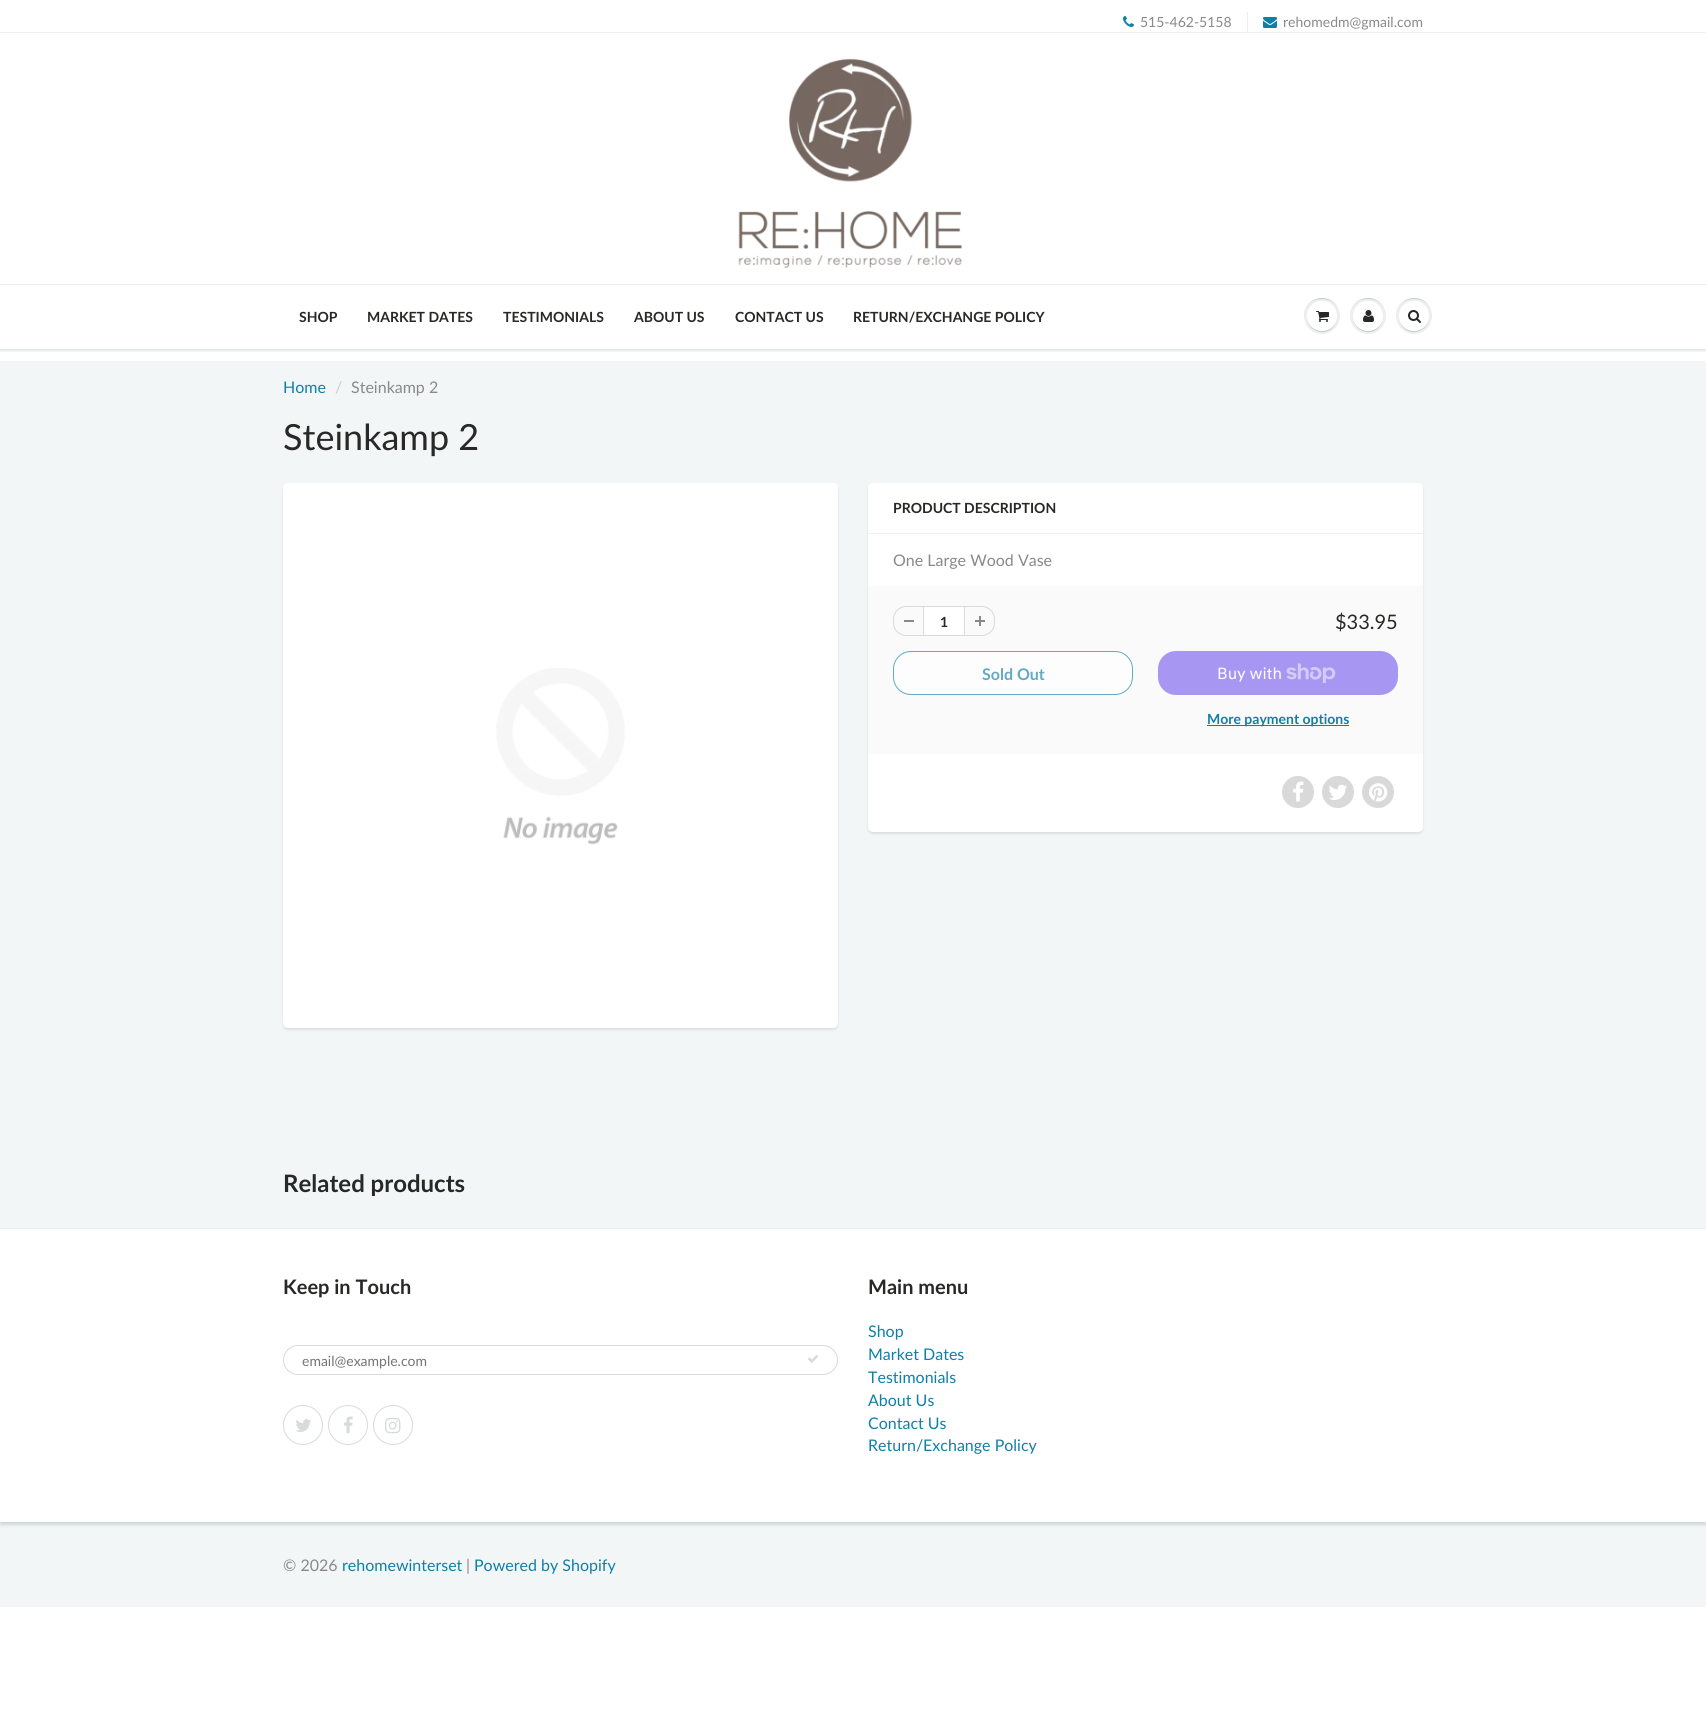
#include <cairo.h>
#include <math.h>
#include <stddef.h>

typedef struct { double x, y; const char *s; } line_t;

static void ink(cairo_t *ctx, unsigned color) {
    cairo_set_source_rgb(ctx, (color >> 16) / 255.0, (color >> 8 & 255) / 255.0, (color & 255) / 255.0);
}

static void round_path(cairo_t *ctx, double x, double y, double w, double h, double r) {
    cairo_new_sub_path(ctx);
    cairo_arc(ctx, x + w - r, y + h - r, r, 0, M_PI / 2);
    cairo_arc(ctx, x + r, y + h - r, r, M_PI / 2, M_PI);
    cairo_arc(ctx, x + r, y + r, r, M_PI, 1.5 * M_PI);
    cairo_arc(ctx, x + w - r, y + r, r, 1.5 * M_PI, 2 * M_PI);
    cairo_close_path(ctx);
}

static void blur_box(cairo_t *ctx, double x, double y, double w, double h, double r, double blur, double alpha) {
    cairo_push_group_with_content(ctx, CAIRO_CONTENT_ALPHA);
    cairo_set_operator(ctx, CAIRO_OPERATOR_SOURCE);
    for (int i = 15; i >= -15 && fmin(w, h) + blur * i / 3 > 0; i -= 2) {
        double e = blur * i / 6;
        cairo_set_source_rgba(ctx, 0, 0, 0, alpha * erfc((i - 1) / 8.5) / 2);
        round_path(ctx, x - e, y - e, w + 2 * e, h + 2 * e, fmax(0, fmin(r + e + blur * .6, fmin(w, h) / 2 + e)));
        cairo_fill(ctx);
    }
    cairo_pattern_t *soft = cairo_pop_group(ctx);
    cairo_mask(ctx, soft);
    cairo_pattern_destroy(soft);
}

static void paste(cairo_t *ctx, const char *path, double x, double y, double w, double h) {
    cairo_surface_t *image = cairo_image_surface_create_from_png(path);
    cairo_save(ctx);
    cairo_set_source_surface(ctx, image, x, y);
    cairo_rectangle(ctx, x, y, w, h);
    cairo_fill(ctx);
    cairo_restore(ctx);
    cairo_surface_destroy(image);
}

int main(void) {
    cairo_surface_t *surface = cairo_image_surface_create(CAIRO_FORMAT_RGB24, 1706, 1724);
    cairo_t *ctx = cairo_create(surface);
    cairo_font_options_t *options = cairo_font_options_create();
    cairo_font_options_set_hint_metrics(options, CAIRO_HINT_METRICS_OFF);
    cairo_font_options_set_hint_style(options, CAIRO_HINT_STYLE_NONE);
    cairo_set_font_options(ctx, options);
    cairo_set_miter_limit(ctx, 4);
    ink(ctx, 0xFFFFFF);
    cairo_paint(ctx);
    paste(ctx, "media/1.png", 1123, 16, 11, 11);
    cairo_select_font_face(ctx, "Lato", CAIRO_FONT_SLANT_NORMAL, CAIRO_FONT_WEIGHT_NORMAL);
    cairo_set_font_size(ctx, 14);
    ink(ctx, 0x898989);
    cairo_move_to(ctx, 1140, 27);
    cairo_show_text(ctx, "515-462-5158");
    ink(ctx, 0xECEFEF);
    cairo_rectangle(ctx, 1247, 12, 1, 20);
    cairo_fill(ctx);
    paste(ctx, "media/2.png", 1263, 17, 14, 11);
    ink(ctx, 0x898989);
    cairo_move_to(ctx, 1283, 27);
    cairo_show_text(ctx, "rehomedm@gmail.com");
    ink(ctx, 0xECEFEF);
    cairo_rectangle(ctx, 0, 32, 1706, 1);
    cairo_fill(ctx);
    paste(ctx, "media/3.png", 738, 58, 224, 210);
    cairo_save(ctx);
    cairo_rectangle(ctx, 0, 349, 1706, 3);
    cairo_clip(ctx);
    ink(ctx, 0x0B191C);
    blur_box(ctx, 0, 286, 1706, 65, 0, 1, 0.12);
    cairo_restore(ctx);
    cairo_rectangle(ctx, 0, 284, 1706, 1);
    cairo_fill(ctx);
    cairo_select_font_face(ctx, "Lato", CAIRO_FONT_SLANT_NORMAL, CAIRO_FONT_WEIGHT_BOLD);
    ink(ctx, 0x282827);
    {
        static const line_t items[] = {
            {299, 322, "SHOP"},
            {367, 322, "MARKET DATES"},
            {503, 322, "TESTIMONIALS"},
            {634, 322, "ABOUT US"},
            {735, 322, "CONTACT US"},
            {853, 322, "RETURN/EXCHANGE POLICY"},
        };
        for (size_t i = 0; i < sizeof items / sizeof *items; i++) {
            cairo_move_to(ctx, items[i].x, items[i].y);
            cairo_show_text(ctx, items[i].s);
        }
    }
    ink(ctx, 0xEDEFEF);
    cairo_new_path(ctx);
    cairo_arc(ctx, 1322, 316, 18, 0, 2 * M_PI);
    cairo_fill(ctx);
    ink(ctx, 0xC9CBCB);
    cairo_new_path(ctx);
    cairo_move_to(ctx, 1322, 299);
    cairo_curve_to(ctx, 1334, 299, 1340, 307.5, 1340, 316.5);
    cairo_curve_to(ctx, 1340, 313, 1339, 309, 1337, 306);
    cairo_curve_to(ctx, 1327, 291, 1303.5, 298.5, 1304, 316.5);
    cairo_curve_to(ctx, 1304, 307.5, 1310, 299, 1322, 299);
    cairo_close_path(ctx);
    cairo_fill(ctx);
    cairo_new_path(ctx);
    cairo_move_to(ctx, 1337, 316.5);
    cairo_curve_to(ctx, 1336.5, 335.5, 1307.5, 335.5, 1307, 316.5);
    cairo_curve_to(ctx, 1306.5, 331.5, 1326, 338, 1334.5, 325.5);
    cairo_curve_to(ctx, 1336, 323, 1337, 319.5, 1337, 316.5);
    cairo_close_path(ctx);
    cairo_fill(ctx);
    ink(ctx, 0xFFFFFF);
    cairo_arc(ctx, 1322, 316, 15, 0, 2 * M_PI);
    cairo_fill(ctx);
    cairo_new_path(ctx);
    cairo_move_to(ctx, 1322, 302);
    cairo_curve_to(ctx, 1332, 302, 1337, 309, 1337, 316.5);
    cairo_curve_to(ctx, 1337, 313.5, 1336, 310, 1334.5, 307.5);
    cairo_curve_to(ctx, 1326, 295, 1306.5, 301.5, 1307, 316.5);
    cairo_curve_to(ctx, 1307, 309, 1312, 302, 1322, 302);
    cairo_close_path(ctx);
    cairo_fill(ctx);
    paste(ctx, "media/4.png", 1316, 311, 13, 11);
    ink(ctx, 0xEDEFEF);
    cairo_arc(ctx, 1368, 316, 18, 0, 2 * M_PI);
    cairo_fill(ctx);
    ink(ctx, 0xC9CBCB);
    cairo_new_path(ctx);
    cairo_move_to(ctx, 1368, 299);
    cairo_curve_to(ctx, 1380, 299, 1386, 307.5, 1386, 316.5);
    cairo_curve_to(ctx, 1386, 313, 1385, 309, 1383, 306);
    cairo_curve_to(ctx, 1373, 291, 1349.5, 298.5, 1350, 316.5);
    cairo_curve_to(ctx, 1350, 307.5, 1356, 299, 1368, 299);
    cairo_close_path(ctx);
    cairo_fill(ctx);
    cairo_new_path(ctx);
    cairo_move_to(ctx, 1383, 316.5);
    cairo_curve_to(ctx, 1382.5, 335.5, 1353.5, 335.5, 1353, 316.5);
    cairo_curve_to(ctx, 1352.5, 331.5, 1372, 338, 1380.5, 325.5);
    cairo_curve_to(ctx, 1382, 323, 1383, 319.5, 1383, 316.5);
    cairo_close_path(ctx);
    cairo_fill(ctx);
    ink(ctx, 0xFFFFFF);
    cairo_arc(ctx, 1368, 316, 15, 0, 2 * M_PI);
    cairo_fill(ctx);
    cairo_new_path(ctx);
    cairo_move_to(ctx, 1368, 302);
    cairo_curve_to(ctx, 1378, 302, 1383, 309, 1383, 316.5);
    cairo_curve_to(ctx, 1383, 313.5, 1382, 310, 1380.5, 307.5);
    cairo_curve_to(ctx, 1372, 295, 1352.5, 301.5, 1353, 316.5);
    cairo_curve_to(ctx, 1353, 309, 1358, 302, 1368, 302);
    cairo_close_path(ctx);
    cairo_fill(ctx);
    paste(ctx, "media/5.png", 1363, 310, 11, 12);
    ink(ctx, 0xEDEFEF);
    cairo_arc(ctx, 1414, 316, 18, 0, 2 * M_PI);
    cairo_fill(ctx);
    ink(ctx, 0xC9CBCB);
    cairo_new_path(ctx);
    cairo_move_to(ctx, 1414, 299);
    cairo_curve_to(ctx, 1426, 299, 1432, 307.5, 1432, 316.5);
    cairo_curve_to(ctx, 1432, 313, 1431, 309, 1429, 306);
    cairo_curve_to(ctx, 1419, 291, 1395.5, 298.5, 1396, 316.5);
    cairo_curve_to(ctx, 1396, 307.5, 1402, 299, 1414, 299);
    cairo_close_path(ctx);
    cairo_fill(ctx);
    cairo_new_path(ctx);
    cairo_move_to(ctx, 1429, 316.5);
    cairo_curve_to(ctx, 1428.5, 335.5, 1399.5, 335.5, 1399, 316.5);
    cairo_curve_to(ctx, 1399, 319.5, 1400, 323, 1401.5, 325.5);
    cairo_curve_to(ctx, 1410, 338, 1429.5, 331.5, 1429, 316.5);
    cairo_close_path(ctx);
    cairo_fill(ctx);
    ink(ctx, 0xFFFFFF);
    cairo_arc(ctx, 1414, 316, 15, 0, 2 * M_PI);
    cairo_fill(ctx);
    cairo_new_path(ctx);
    cairo_move_to(ctx, 1414, 302);
    cairo_curve_to(ctx, 1424, 302, 1429, 309, 1429, 316.5);
    cairo_curve_to(ctx, 1429, 313.5, 1428, 310, 1426.5, 307.5);
    cairo_curve_to(ctx, 1418, 295, 1398.5, 301.5, 1399, 316.5);
    cairo_curve_to(ctx, 1399, 309, 1404, 302, 1414, 302);
    cairo_close_path(ctx);
    cairo_fill(ctx);
    paste(ctx, "media/6.png", 1408, 310, 13, 13);
    ink(ctx, 0xF3F6F6);
    cairo_rectangle(ctx, 0, 361, 1706, 867);
    cairo_fill(ctx);
    cairo_select_font_face(ctx, "Lato", CAIRO_FONT_SLANT_NORMAL, CAIRO_FONT_WEIGHT_NORMAL);
    cairo_set_font_size(ctx, 16);
    ink(ctx, 0x107FA8);
    cairo_move_to(ctx, 283, 393);
    cairo_show_text(ctx, "Home");
    ink(ctx, 0xCCCCCC);
    cairo_move_to(ctx, 335, 393);
    cairo_show_text(ctx, "/");
    ink(ctx, 0x898989);
    cairo_move_to(ctx, 351, 393);
    cairo_show_text(ctx, "Steinkamp 2");
    cairo_set_font_size(ctx, 36);
    ink(ctx, 0x282827);
    cairo_move_to(ctx, 283, 450);
    cairo_show_text(ctx, "Steinkamp 2");
    ink(ctx, 0x0B191C);
    blur_box(ctx, 283, 485, 555, 545, 5, 1, 0.1);
    ink(ctx, 0xFFFFFF);
    round_path(ctx, 283, 483, 555, 545, 5);
    cairo_fill(ctx);
    paste(ctx, "media/7.png", 496, 668, 129, 177);
    ink(ctx, 0x0B191C);
    blur_box(ctx, 868, 485, 555, 349, 5, 1, 0.1);
    ink(ctx, 0xFFFFFF);
    round_path(ctx, 868, 483, 555, 349, 5);
    cairo_fill(ctx);
    ink(ctx, 0xEFEFEF);
    cairo_rectangle(ctx, 868, 533, 555, 1);
    cairo_fill(ctx);
    cairo_select_font_face(ctx, "Lato", CAIRO_FONT_SLANT_NORMAL, CAIRO_FONT_WEIGHT_BOLD);
    cairo_set_font_size(ctx, 14);
    ink(ctx, 0x282827);
    cairo_move_to(ctx, 893, 513);
    cairo_show_text(ctx, "PRODUCT DESCRIPTION");
    cairo_select_font_face(ctx, "Lato", CAIRO_FONT_SLANT_NORMAL, CAIRO_FONT_WEIGHT_NORMAL);
    cairo_set_font_size(ctx, 16);
    ink(ctx, 0x898989);
    cairo_move_to(ctx, 893, 566);
    cairo_show_text(ctx, "One Large Wood Vase");
    ink(ctx, 0xFAFAFA);
    cairo_rectangle(ctx, 868, 586, 555, 168);
    cairo_fill(ctx);
    ink(ctx, 0x898989);
    cairo_rectangle(ctx, 904, 620, 10, 2);
    cairo_fill(ctx);
    ink(ctx, 0xD7DBDB);
    cairo_set_fill_rule(ctx, CAIRO_FILL_RULE_EVEN_ODD);
    cairo_new_path(ctx);
    cairo_move_to(ctx, 906, 606);
    cairo_line_to(ctx, 923, 606);
    cairo_line_to(ctx, 923, 636);
    cairo_line_to(ctx, 906, 636);
    cairo_curve_to(ctx, 899, 636, 893, 630, 893, 623);
    cairo_line_to(ctx, 893, 619);
    cairo_curve_to(ctx, 893, 612, 899, 606, 906, 606);
    cairo_close_path(ctx);
    cairo_move_to(ctx, 906, 607);
    cairo_line_to(ctx, 923, 607);
    cairo_line_to(ctx, 923, 635);
    cairo_line_to(ctx, 906, 635);
    cairo_curve_to(ctx, 899.5, 635, 894, 629.5, 894, 623);
    cairo_line_to(ctx, 894, 619);
    cairo_curve_to(ctx, 894, 612.5, 899.5, 607, 906, 607);
    cairo_close_path(ctx);
    cairo_fill(ctx);
    ink(ctx, 0xFFFFFF);
    cairo_rectangle(ctx, 923.5, 606.5, 41, 29);
    cairo_fill_preserve(ctx);
    ink(ctx, 0xD7DBDB);
    cairo_set_line_width(ctx, 1);
    cairo_stroke(ctx);
    cairo_select_font_face(ctx, "Lato", CAIRO_FONT_SLANT_NORMAL, CAIRO_FONT_WEIGHT_BOLD);
    cairo_set_font_size(ctx, 14);
    ink(ctx, 0x282827);
    cairo_move_to(ctx, 940, 627);
    cairo_show_text(ctx, "1");
    paste(ctx, "media/8.png", 975, 616, 10, 10);
    ink(ctx, 0xD7DBDB);
    cairo_new_path(ctx);
    cairo_move_to(ctx, 965, 606);
    cairo_line_to(ctx, 982, 606);
    cairo_curve_to(ctx, 989, 606, 995, 612, 995, 619);
    cairo_line_to(ctx, 995, 623);
    cairo_curve_to(ctx, 995, 630, 989, 636, 982, 636);
    cairo_line_to(ctx, 965, 636);
    cairo_close_path(ctx);
    cairo_move_to(ctx, 965, 607);
    cairo_line_to(ctx, 982, 607);
    cairo_curve_to(ctx, 988.5, 607, 994, 612.5, 994, 619);
    cairo_line_to(ctx, 994, 623);
    cairo_curve_to(ctx, 994, 629.5, 988.5, 635, 982, 635);
    cairo_line_to(ctx, 965, 635);
    cairo_close_path(ctx);
    cairo_fill(ctx);
    cairo_select_font_face(ctx, "Lato", CAIRO_FONT_SLANT_NORMAL, CAIRO_FONT_WEIGHT_NORMAL);
    cairo_set_font_size(ctx, 20);
    ink(ctx, 0x282827);
    cairo_move_to(ctx, 1335, 629);
    cairo_show_text(ctx, "$33.95");
    ink(ctx, 0xFDFDFD);
    round_path(ctx, 893.5, 651.5, 239, 43, 17.5);
    cairo_fill_preserve(ctx);
    ink(ctx, 0x62AAC5);
    cairo_stroke(ctx);
    cairo_select_font_face(ctx, "Lato", CAIRO_FONT_SLANT_NORMAL, CAIRO_FONT_WEIGHT_BOLD);
    cairo_set_font_size(ctx, 16);
    cairo_move_to(ctx, 982, 680);
    cairo_show_text(ctx, "Sold Out");
    ink(ctx, 0xA797F3);
    round_path(ctx, 1158, 651, 240, 44, 18);
    cairo_fill(ctx);
    cairo_select_font_face(ctx, "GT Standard", CAIRO_FONT_SLANT_NORMAL, CAIRO_FONT_WEIGHT_NORMAL);
    ink(ctx, 0xFDFDFD);
    cairo_move_to(ctx, 1217, 679);
    cairo_show_text(ctx, "Buy with");
    paste(ctx, "media/9.png", 1286, 663, 50, 20);
    ink(ctx, 0x107FA8);
    cairo_rectangle(ctx, 1207, 725, 142, 1);
    cairo_fill(ctx);
    cairo_select_font_face(ctx, "Lato", CAIRO_FONT_SLANT_NORMAL, CAIRO_FONT_WEIGHT_BOLD);
    cairo_set_font_size(ctx, 14);
    cairo_move_to(ctx, 1207, 724);
    cairo_show_text(ctx, "More payment options");
    ink(ctx, 0xD9D9D9);
    cairo_new_path(ctx);
    cairo_arc(ctx, 1298, 792, 16, 0, 2 * M_PI);
    cairo_fill(ctx);
    paste(ctx, "media/10.png", 1293, 781, 11, 21);
    cairo_arc(ctx, 1338, 792, 16, 0, 2 * M_PI);
    cairo_fill(ctx);
    paste(ctx, "media/11.png", 1329, 784, 18, 16);
    cairo_arc(ctx, 1378, 792, 16, 0, 2 * M_PI);
    cairo_fill(ctx);
    paste(ctx, "media/12.png", 1369, 783, 19, 19);
    cairo_set_font_size(ctx, 24);
    ink(ctx, 0x282827);
    cairo_move_to(ctx, 283, 1192);
    cairo_show_text(ctx, "Related products");
    ink(ctx, 0xF3F6F6);
    cairo_rectangle(ctx, 0, 1522, 1706, 85);
    cairo_fill(ctx);
    ink(ctx, 0xD1D7D7);
    blur_box(ctx, 0, 1231, 1706, 294, 0, 1.5, 1);
    ink(ctx, 0xFFFFFF);
    cairo_rectangle(ctx, 0, 1229, 1706, 293);
    cairo_fill(ctx);
    ink(ctx, 0xECEFEF);
    cairo_rectangle(ctx, 0, 1228, 1706, 1);
    cairo_fill(ctx);
    cairo_set_font_size(ctx, 20);
    ink(ctx, 0x282827);
    cairo_move_to(ctx, 283, 1294);
    cairo_show_text(ctx, "Keep in Touch");
    round_path(ctx, 283.5, 1345.5, 554, 29, 14.5);
    ink(ctx, 0xD7DBDB);
    cairo_stroke(ctx);
    cairo_select_font_face(ctx, "Lato", CAIRO_FONT_SLANT_NORMAL, CAIRO_FONT_WEIGHT_NORMAL);
    cairo_set_font_size(ctx, 14);
    ink(ctx, 0x757575);
    cairo_move_to(ctx, 302, 1366);
    cairo_show_text(ctx, "email@example.com");
    paste(ctx, "media/13.png", 808, 1355, 10, 8);
    cairo_arc(ctx, 303, 1425, 19.5, 0, 2 * M_PI);
    ink(ctx, 0xD7DBDB);
    cairo_stroke(ctx);
    paste(ctx, "media/14.png", 296, 1419, 15, 13);
    cairo_arc(ctx, 348, 1425, 19.5, 0, 2 * M_PI);
    cairo_stroke(ctx);
    paste(ctx, "media/15.png", 344, 1416, 9, 18);
    cairo_arc(ctx, 393, 1425, 19.5, 0, 2 * M_PI);
    cairo_stroke(ctx);
    paste(ctx, "media/16.png", 385, 1417, 16, 17);
    cairo_select_font_face(ctx, "Lato", CAIRO_FONT_SLANT_NORMAL, CAIRO_FONT_WEIGHT_BOLD);
    cairo_set_font_size(ctx, 20);
    ink(ctx, 0x282827);
    cairo_move_to(ctx, 868, 1294);
    cairo_show_text(ctx, "Main menu");
    cairo_select_font_face(ctx, "Lato", CAIRO_FONT_SLANT_NORMAL, CAIRO_FONT_WEIGHT_NORMAL);
    cairo_set_font_size(ctx, 16);
    ink(ctx, 0x107FA8);
    {
        static const line_t items[] = {
            {868, 1337, "Shop"},
            {868, 1360, "Market Dates"},
            {868, 1383, "Testimonials"},
            {868, 1406, "About Us"},
            {868, 1429, "Contact Us"},
            {868, 1451, "Return/Exchange Policy"},
        };
        for (size_t i = 0; i < sizeof items / sizeof *items; i++) {
            cairo_move_to(ctx, items[i].x, items[i].y);
            cairo_show_text(ctx, items[i].s);
        }
    }
    ink(ctx, 0x898989);
    cairo_move_to(ctx, 283, 1571);
    cairo_show_text(ctx, "© 2026");
    ink(ctx, 0x107FA8);
    cairo_move_to(ctx, 342, 1571);
    cairo_show_text(ctx, "rehomewinterset");
    ink(ctx, 0x898989);
    cairo_move_to(ctx, 466, 1571);
    cairo_show_text(ctx, "|");
    ink(ctx, 0x107FA8);
    cairo_move_to(ctx, 474, 1571);
    cairo_show_text(ctx, "Powered by Shopify");
    cairo_surface_write_to_png(surface, "image.png");
    cairo_font_options_destroy(options);
    cairo_destroy(ctx);
    cairo_surface_destroy(surface);
    return 0;
}
